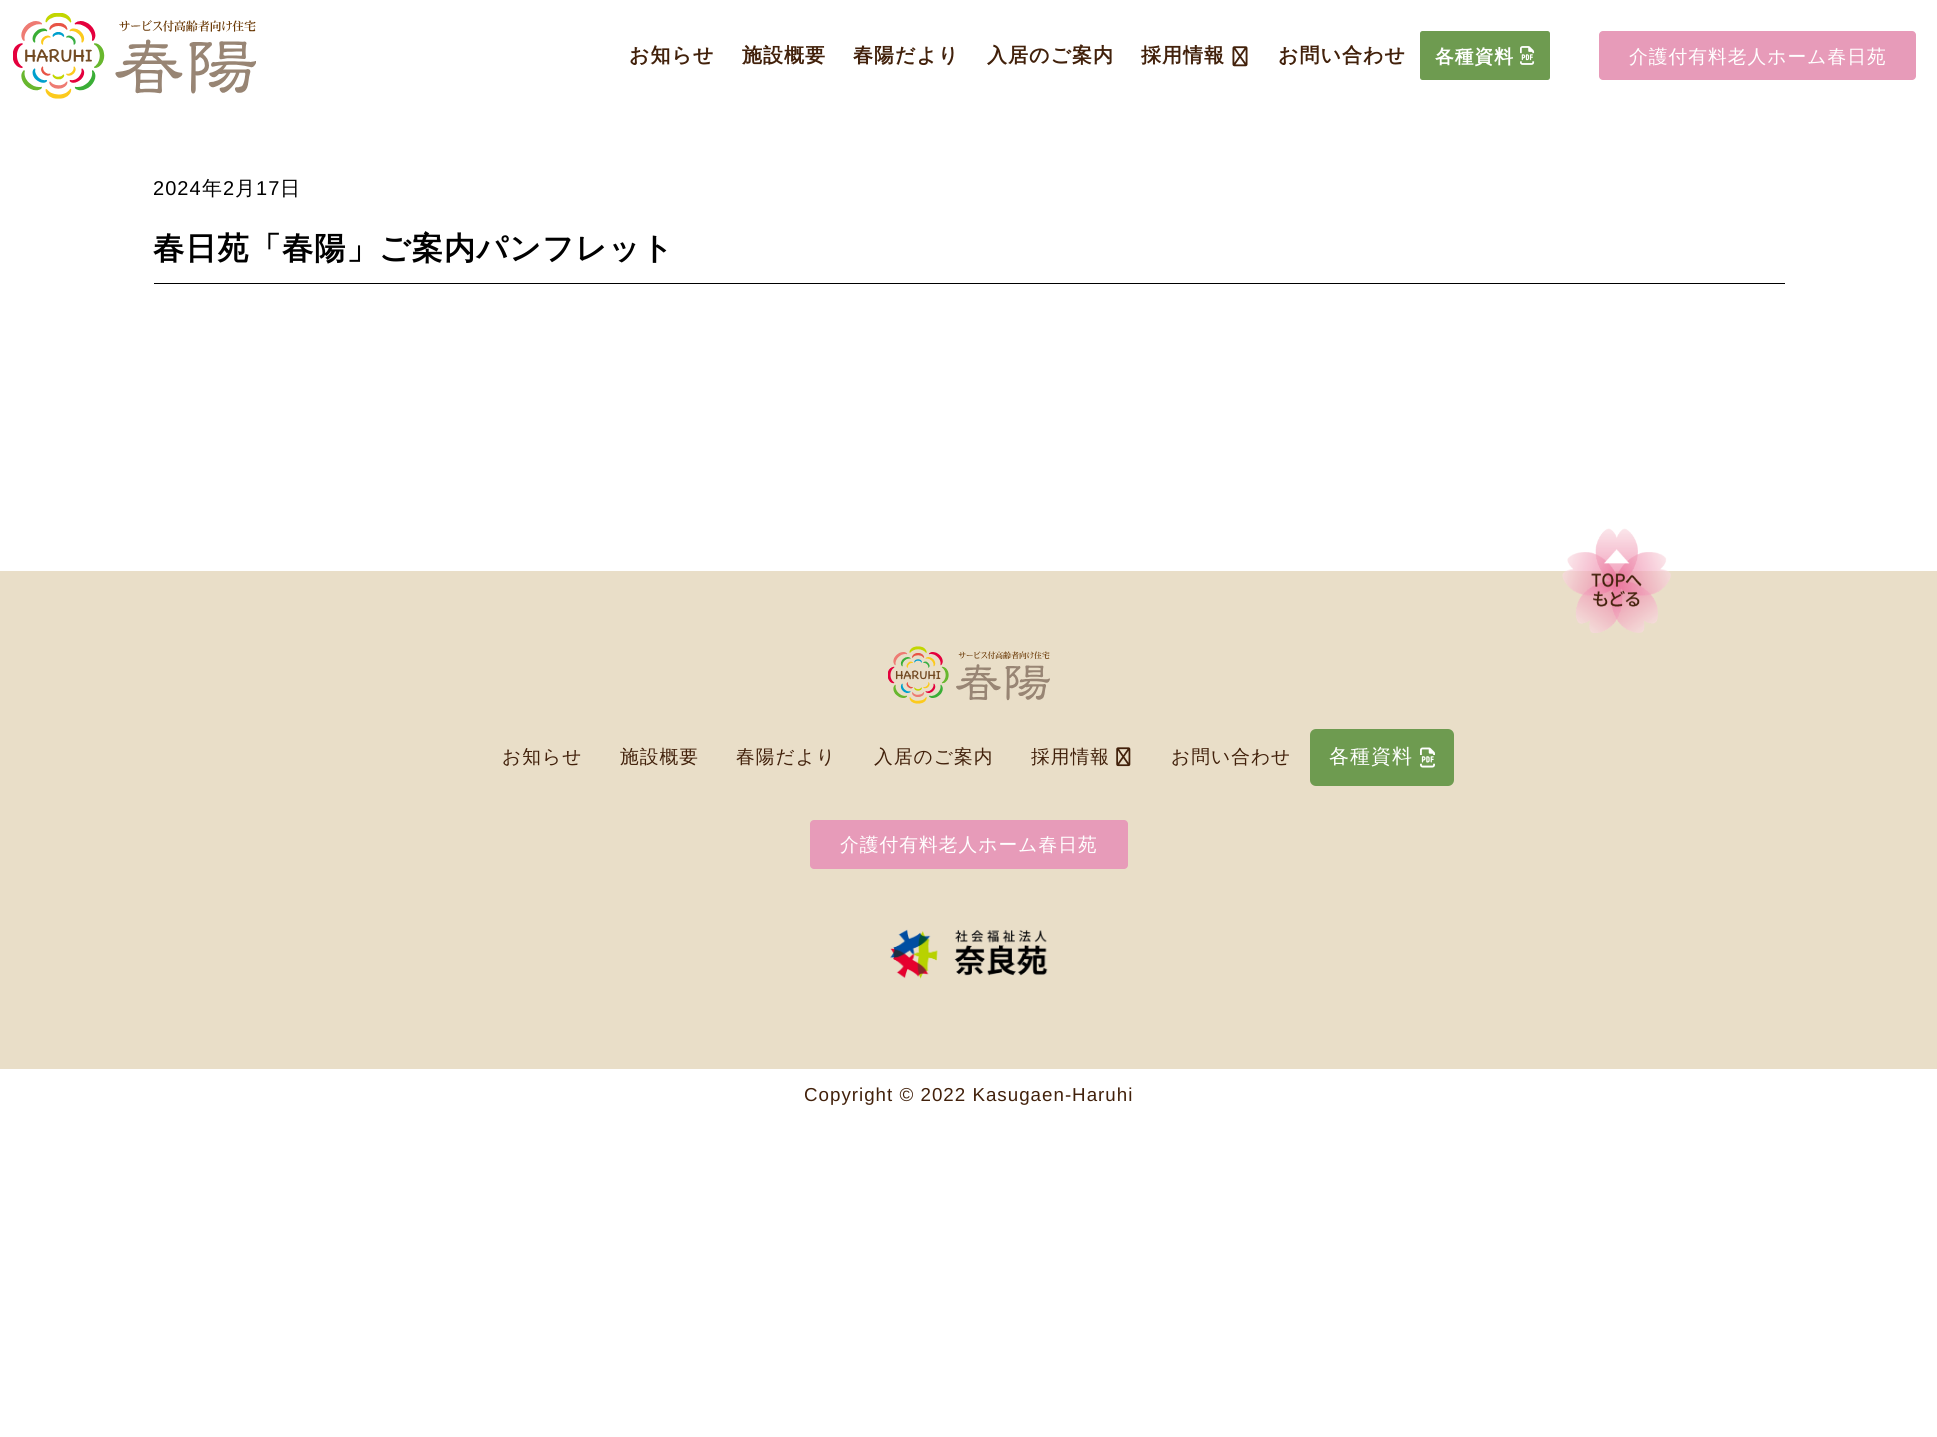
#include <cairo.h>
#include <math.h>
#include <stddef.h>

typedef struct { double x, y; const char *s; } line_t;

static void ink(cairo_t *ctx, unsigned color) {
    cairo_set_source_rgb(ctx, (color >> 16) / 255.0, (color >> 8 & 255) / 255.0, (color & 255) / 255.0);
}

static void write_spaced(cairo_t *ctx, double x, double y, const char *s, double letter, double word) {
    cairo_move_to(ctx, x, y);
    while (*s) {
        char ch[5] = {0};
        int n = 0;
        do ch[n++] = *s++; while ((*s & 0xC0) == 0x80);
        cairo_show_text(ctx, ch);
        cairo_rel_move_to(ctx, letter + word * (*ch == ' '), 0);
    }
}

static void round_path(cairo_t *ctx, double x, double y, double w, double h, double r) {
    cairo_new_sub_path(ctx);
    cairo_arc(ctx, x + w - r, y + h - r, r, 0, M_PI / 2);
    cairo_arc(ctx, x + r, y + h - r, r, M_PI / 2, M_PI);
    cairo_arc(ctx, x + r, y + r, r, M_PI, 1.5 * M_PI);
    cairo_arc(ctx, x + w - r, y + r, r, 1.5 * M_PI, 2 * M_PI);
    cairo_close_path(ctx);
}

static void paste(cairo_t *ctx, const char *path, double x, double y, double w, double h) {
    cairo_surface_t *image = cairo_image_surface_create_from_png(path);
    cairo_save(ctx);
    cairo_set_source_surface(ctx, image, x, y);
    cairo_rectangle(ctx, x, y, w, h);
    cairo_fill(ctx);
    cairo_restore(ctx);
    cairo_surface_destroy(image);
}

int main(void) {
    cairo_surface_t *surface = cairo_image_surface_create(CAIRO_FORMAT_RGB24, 1937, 1437);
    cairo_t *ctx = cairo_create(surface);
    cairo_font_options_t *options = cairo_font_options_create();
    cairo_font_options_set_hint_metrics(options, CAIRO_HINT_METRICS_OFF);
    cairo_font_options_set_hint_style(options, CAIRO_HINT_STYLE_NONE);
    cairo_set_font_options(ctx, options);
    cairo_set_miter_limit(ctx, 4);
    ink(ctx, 0xFFFFFF);
    cairo_paint(ctx);
    paste(ctx, "media/1.png", 13, 13, 243, 86);
    cairo_select_font_face(ctx, "WenQuanYi Zen Hei", CAIRO_FONT_SLANT_NORMAL, CAIRO_FONT_WEIGHT_BOLD);
    cairo_set_font_size(ctx, 20);
    ink(ctx, 0x42210B);
    {
        static const line_t items[] = {
            {629, 62, "お知らせ"},
            {742, 62, "施設概要"},
            {853, 62, "春陽だより"},
            {987, 62, "入居のご案内"},
            {1141, 62, "採用情報"},
        };
        for (size_t i = 0; i < sizeof items / sizeof *items; i++) {
            write_spaced(ctx, items[i].x, items[i].y, items[i].s, 1, 0);
        }
    }
    paste(ctx, "media/2.png", 1232, 46, 16, 21);
    write_spaced(ctx, 1278, 62, "お問い合わせ", 1, 0);
    ink(ctx, 0x6E9B50);
    round_path(ctx, 1420, 31, 130, 49, 2.5);
    cairo_fill(ctx);
    cairo_set_font_size(ctx, 18.75);
    ink(ctx, 0xFFFFFF);
    write_spaced(ctx, 1435, 63, "各種資料", 1, 0);
    paste(ctx, "media/3.png", 1520, 46, 15, 19);
    ink(ctx, 0xE79BB9);
    round_path(ctx, 1599, 31, 317, 49, 4);
    cairo_fill(ctx);
    cairo_select_font_face(ctx, "WenQuanYi Zen Hei Medium", CAIRO_FONT_SLANT_NORMAL, CAIRO_FONT_WEIGHT_NORMAL);
    ink(ctx, 0xFFFFFF);
    write_spaced(ctx, 1629, 63, "介護付有料老人ホーム春日苑", 1, 0);
    ink(ctx, 0x000000);
    cairo_rectangle(ctx, 154, 283, 1631, 1);
    cairo_fill(ctx);
    cairo_select_font_face(ctx, "Liberation Sans", CAIRO_FONT_SLANT_NORMAL, CAIRO_FONT_WEIGHT_NORMAL);
    cairo_set_font_size(ctx, 20);
    write_spaced(ctx, 153, 195, "2024", 1, 0);
    cairo_select_font_face(ctx, "WenQuanYi Zen Hei Medium", CAIRO_FONT_SLANT_NORMAL, CAIRO_FONT_WEIGHT_NORMAL);
    write_spaced(ctx, 202, 195, "年", 1, 0);
    cairo_select_font_face(ctx, "Liberation Sans", CAIRO_FONT_SLANT_NORMAL, CAIRO_FONT_WEIGHT_NORMAL);
    write_spaced(ctx, 223, 195, "2", 1, 0);
    cairo_select_font_face(ctx, "WenQuanYi Zen Hei Medium", CAIRO_FONT_SLANT_NORMAL, CAIRO_FONT_WEIGHT_NORMAL);
    write_spaced(ctx, 235, 195, "月", 1, 0);
    cairo_select_font_face(ctx, "Liberation Sans", CAIRO_FONT_SLANT_NORMAL, CAIRO_FONT_WEIGHT_NORMAL);
    write_spaced(ctx, 256, 195, "17", 1, 0);
    cairo_select_font_face(ctx, "WenQuanYi Zen Hei Medium", CAIRO_FONT_SLANT_NORMAL, CAIRO_FONT_WEIGHT_NORMAL);
    write_spaced(ctx, 280, 195, "日", 1, 0);
    cairo_select_font_face(ctx, "WenQuanYi Zen Hei", CAIRO_FONT_SLANT_NORMAL, CAIRO_FONT_WEIGHT_BOLD);
    cairo_set_font_size(ctx, 31.25);
    write_spaced(ctx, 153, 259, "春日苑「春陽」ご案内パンフレット", 1, 0);
    ink(ctx, 0xE9DEC8);
    cairo_rectangle(ctx, 0, 571, 1937, 498);
    cairo_fill(ctx);
    paste(ctx, "media/4.png", 1562, 528, 109, 105);
    paste(ctx, "media/5.png", 888, 646, 162, 58);
    cairo_select_font_face(ctx, "WenQuanYi Zen Hei Medium", CAIRO_FONT_SLANT_NORMAL, CAIRO_FONT_WEIGHT_NORMAL);
    cairo_set_font_size(ctx, 18.75);
    ink(ctx, 0x42210B);
    {
        static const line_t items[] = {
            {502, 763, "お知らせ"},
            {620, 763, "施設概要"},
            {736, 763, "春陽だより"},
            {874, 763, "入居のご案内"},
            {1031, 763, "採用情報"},
        };
        for (size_t i = 0; i < sizeof items / sizeof *items; i++) {
            write_spaced(ctx, items[i].x, items[i].y, items[i].s, 1, 0);
        }
    }
    paste(ctx, "media/6.png", 1116, 747, 15, 20);
    write_spaced(ctx, 1171, 763, "お問い合わせ", 1, 0);
    ink(ctx, 0x6E9B50);
    round_path(ctx, 1310, 729, 144, 57, 6);
    cairo_fill(ctx);
    cairo_set_font_size(ctx, 20);
    ink(ctx, 0xFFFFFF);
    write_spaced(ctx, 1329, 763, "各種資料", 1, 0);
    paste(ctx, "media/7.png", 1420, 747, 15, 21);
    ink(ctx, 0xE79BB9);
    round_path(ctx, 810, 820, 318, 49, 4);
    cairo_fill(ctx);
    cairo_set_font_size(ctx, 18.75);
    ink(ctx, 0xFFFFFF);
    write_spaced(ctx, 840, 851, "介護付有料老人ホーム春日苑", 1, 0);
    paste(ctx, "media/8.png", 890, 929, 158, 50);
    cairo_select_font_face(ctx, "Liberation Sans", CAIRO_FONT_SLANT_NORMAL, CAIRO_FONT_WEIGHT_NORMAL);
    ink(ctx, 0x42210B);
    write_spaced(ctx, 804, 1101, "Copyright © 2022 Kasugaen-Haruhi", 1, 0);
    cairo_surface_write_to_png(surface, "image.png");
    cairo_font_options_destroy(options);
    cairo_destroy(ctx);
    cairo_surface_destroy(surface);
    return 0;
}
